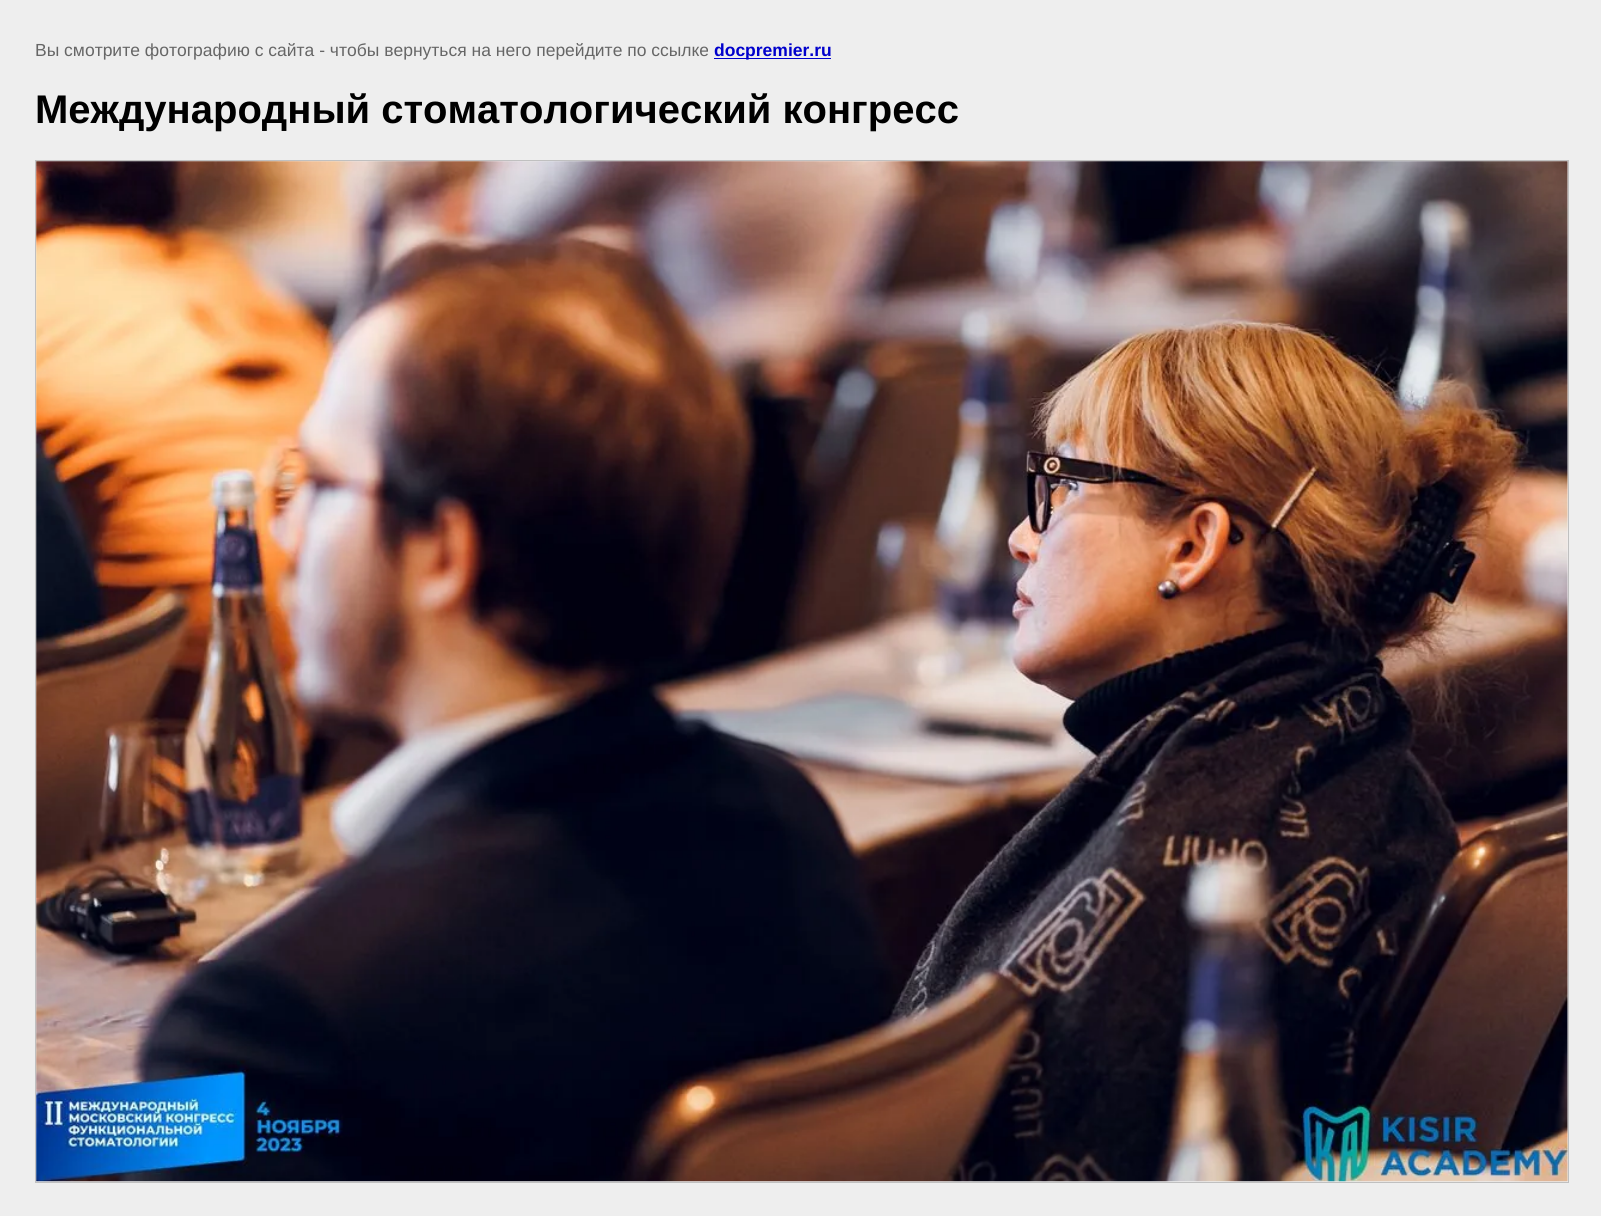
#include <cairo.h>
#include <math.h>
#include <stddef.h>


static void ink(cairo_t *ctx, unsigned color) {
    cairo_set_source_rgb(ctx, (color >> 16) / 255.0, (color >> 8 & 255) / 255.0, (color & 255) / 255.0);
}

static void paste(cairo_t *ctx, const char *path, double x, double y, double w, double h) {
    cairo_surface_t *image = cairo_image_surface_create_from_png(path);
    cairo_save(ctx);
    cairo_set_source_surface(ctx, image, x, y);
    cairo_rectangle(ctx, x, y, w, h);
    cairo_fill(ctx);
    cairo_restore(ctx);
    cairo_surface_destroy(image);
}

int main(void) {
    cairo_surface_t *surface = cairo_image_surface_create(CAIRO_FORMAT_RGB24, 1601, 1216);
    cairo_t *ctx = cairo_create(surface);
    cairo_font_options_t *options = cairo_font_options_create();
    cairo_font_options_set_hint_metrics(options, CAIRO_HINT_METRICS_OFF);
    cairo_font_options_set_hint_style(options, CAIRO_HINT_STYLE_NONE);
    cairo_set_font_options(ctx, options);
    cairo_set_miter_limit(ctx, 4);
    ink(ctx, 0xEEEEEE);
    cairo_paint(ctx);
    cairo_select_font_face(ctx, "Liberation Sans", CAIRO_FONT_SLANT_NORMAL, CAIRO_FONT_WEIGHT_NORMAL);
    cairo_set_font_size(ctx, 17.5);
    ink(ctx, 0x666666);
    cairo_move_to(ctx, 35, 56);
    cairo_show_text(ctx, "Вы смотрите фотографию с сайта - чтобы вернуться на него перейдите по ссылке");
    ink(ctx, 0x0000CC);
    cairo_rectangle(ctx, 714, 58, 117, 1);
    cairo_fill(ctx);
    cairo_select_font_face(ctx, "Liberation Sans", CAIRO_FONT_SLANT_NORMAL, CAIRO_FONT_WEIGHT_BOLD);
    cairo_move_to(ctx, 714, 56);
    cairo_show_text(ctx, "docpremier.ru");
    cairo_set_font_size(ctx, 40);
    ink(ctx, 0x000000);
    cairo_move_to(ctx, 35, 123);
    cairo_show_text(ctx, "Международный стоматологический конгресс");
    cairo_rectangle(ctx, 35.5, 160.5, 1533, 1022);
    ink(ctx, 0xC0C0C0);
    cairo_set_line_width(ctx, 1);
    cairo_stroke(ctx);
    paste(ctx, "media/1.png", 36, 161, 1532, 1021);
    cairo_surface_write_to_png(surface, "image.png");
    cairo_font_options_destroy(options);
    cairo_destroy(ctx);
    cairo_surface_destroy(surface);
    return 0;
}
